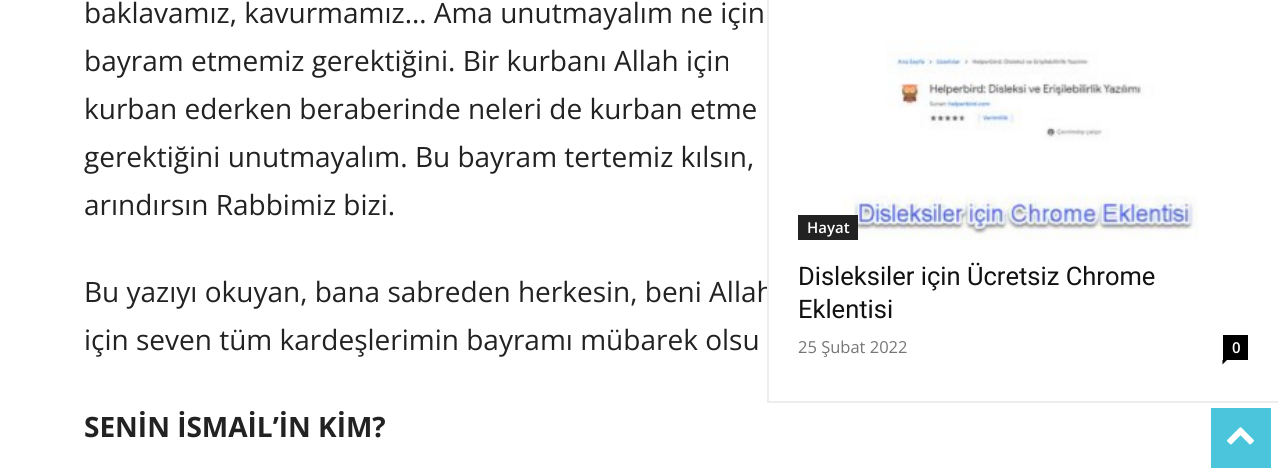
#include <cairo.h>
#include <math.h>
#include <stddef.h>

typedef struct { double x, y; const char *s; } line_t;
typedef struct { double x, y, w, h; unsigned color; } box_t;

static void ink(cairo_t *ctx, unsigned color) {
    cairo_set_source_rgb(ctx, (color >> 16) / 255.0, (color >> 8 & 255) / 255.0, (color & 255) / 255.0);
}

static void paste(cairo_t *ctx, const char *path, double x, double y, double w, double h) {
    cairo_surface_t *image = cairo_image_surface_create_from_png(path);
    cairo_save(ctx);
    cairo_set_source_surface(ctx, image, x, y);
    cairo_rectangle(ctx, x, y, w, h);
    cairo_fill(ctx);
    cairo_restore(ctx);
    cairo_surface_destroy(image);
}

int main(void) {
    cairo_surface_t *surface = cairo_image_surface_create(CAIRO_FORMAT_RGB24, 1278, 474);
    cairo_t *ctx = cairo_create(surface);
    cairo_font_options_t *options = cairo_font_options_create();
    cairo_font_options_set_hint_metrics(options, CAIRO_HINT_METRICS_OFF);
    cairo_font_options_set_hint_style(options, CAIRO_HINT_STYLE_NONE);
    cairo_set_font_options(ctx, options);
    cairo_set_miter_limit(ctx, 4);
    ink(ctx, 0xFFFFFF);
    cairo_paint(ctx);
    cairo_select_font_face(ctx, "Open Sans", CAIRO_FONT_SLANT_NORMAL, CAIRO_FONT_WEIGHT_NORMAL);
    cairo_set_font_size(ctx, 28);
    ink(ctx, 0x222222);
    {
        static const line_t items[] = {
            {84, 23, "baklavamız, kavurmamız… Ama unutmayalım ne için"},
            {84, 71, "bayram etmemiz gerektiğini. Bir kurbanı Allah için"},
            {84, 119, "kurban ederken beraberinde neleri de kurban etme"},
            {84, 167, "gerektiğini unutmayalım. Bu bayram tertemiz kılsın,"},
            {84, 215, "arındırsın Rabbimiz bizi."},
            {84, 302, "Bu yazıyı okuyan, bana sabreden herkesin, beni Allah"},
            {84, 350, "için seven tüm kardeşlerimin bayramı mübarek olsu"},
        };
        for (size_t i = 0; i < sizeof items / sizeof *items; i++) {
            cairo_move_to(ctx, items[i].x, items[i].y);
            cairo_show_text(ctx, items[i].s);
        }
    }
    cairo_select_font_face(ctx, "Open Sans", CAIRO_FONT_SLANT_NORMAL, CAIRO_FONT_WEIGHT_BOLD);
    cairo_move_to(ctx, 84, 437);
    cairo_show_text(ctx, "SENİN İSMAİL’İN KİM?");
    {
        static const box_t items[] = {
            {769, 287, 3, 15, 0xFFFFFF},
            {767, 401, 511, 2, 0xEDEDED},
            {767, 0, 2, 402, 0xEDEDED},
        };
        for (size_t i = 0; i < sizeof items / sizeof *items; i++) {
            ink(ctx, items[i].color);
            cairo_rectangle(ctx, items[i].x, items[i].y, items[i].w, items[i].h);
            cairo_fill(ctx);
        }
    }
    paste(ctx, "media/1.png", 842, 40, 357, 200);
    ink(ctx, 0x222222);
    cairo_rectangle(ctx, 798, 215, 60, 25);
    cairo_fill(ctx);
    cairo_select_font_face(ctx, "Open Sans SemiBold", CAIRO_FONT_SLANT_NORMAL, CAIRO_FONT_WEIGHT_NORMAL);
    cairo_set_font_size(ctx, 15);
    ink(ctx, 0xFFFFFF);
    cairo_move_to(ctx, 807, 233);
    cairo_show_text(ctx, "Hayat");
    cairo_select_font_face(ctx, "Roboto", CAIRO_FONT_SLANT_NORMAL, CAIRO_FONT_WEIGHT_NORMAL);
    cairo_set_font_size(ctx, 25.5);
    ink(ctx, 0x111111);
    cairo_move_to(ctx, 798, 285);
    cairo_show_text(ctx, "Disleksiler için Ücretsiz Chrome");
    cairo_move_to(ctx, 798, 318);
    cairo_show_text(ctx, "Eklentisi");
    cairo_select_font_face(ctx, "Open Sans", CAIRO_FONT_SLANT_NORMAL, CAIRO_FONT_WEIGHT_NORMAL);
    cairo_set_font_size(ctx, 16.5);
    ink(ctx, 0x767676);
    cairo_move_to(ctx, 798, 353);
    cairo_show_text(ctx, "25 Şubat 2022");
    ink(ctx, 0x000000);
    cairo_rectangle(ctx, 1223, 335, 25, 25);
    cairo_fill(ctx);
    cairo_select_font_face(ctx, "Open Sans SemiBold", CAIRO_FONT_SLANT_NORMAL, CAIRO_FONT_WEIGHT_NORMAL);
    cairo_set_font_size(ctx, 15);
    ink(ctx, 0xFFFFFF);
    cairo_move_to(ctx, 1232, 353);
    cairo_show_text(ctx, "0");
    ink(ctx, 0x000000);
    cairo_new_path(ctx);
    cairo_move_to(ctx, 1222.5, 360);
    cairo_line_to(ctx, 1227, 360);
    cairo_line_to(ctx, 1222.5, 364.5);
    cairo_close_path(ctx);
    cairo_fill(ctx);
    ink(ctx, 0x4AC5DB);
    cairo_rectangle(ctx, 1211, 408, 60, 60);
    cairo_fill(ctx);
    paste(ctx, "media/2.png", 1227, 427, 27, 18);
    cairo_surface_write_to_png(surface, "image.png");
    cairo_font_options_destroy(options);
    cairo_destroy(ctx);
    cairo_surface_destroy(surface);
    return 0;
}
